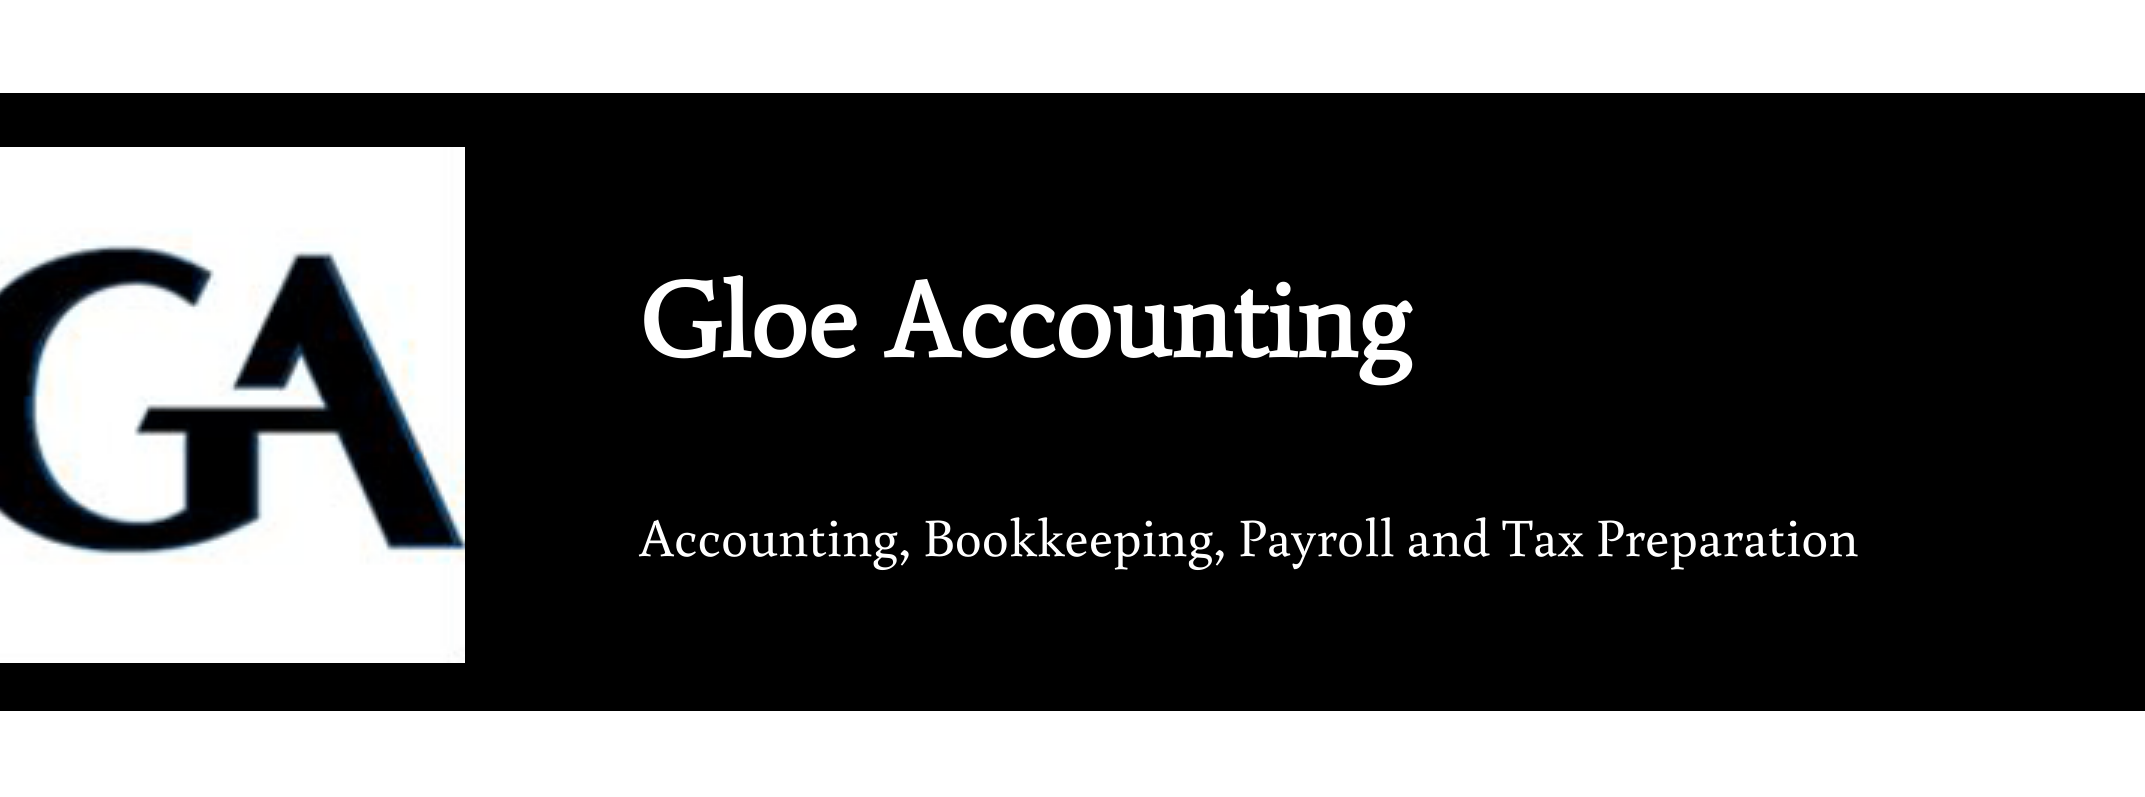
#include <cairo.h>
#include <math.h>
#include <stddef.h>


static void ink(cairo_t *ctx, unsigned color) {
    cairo_set_source_rgb(ctx, (color >> 16) / 255.0, (color >> 8 & 255) / 255.0, (color & 255) / 255.0);
}

static void paste(cairo_t *ctx, const char *path, double x, double y, double w, double h) {
    cairo_surface_t *image = cairo_image_surface_create_from_png(path);
    cairo_save(ctx);
    cairo_set_source_surface(ctx, image, x, y);
    cairo_rectangle(ctx, x, y, w, h);
    cairo_fill(ctx);
    cairo_restore(ctx);
    cairo_surface_destroy(image);
}

int main(void) {
    cairo_surface_t *surface = cairo_image_surface_create(CAIRO_FORMAT_RGB24, 2145, 797);
    cairo_t *ctx = cairo_create(surface);
    cairo_font_options_t *options = cairo_font_options_create();
    cairo_font_options_set_hint_metrics(options, CAIRO_HINT_METRICS_OFF);
    cairo_font_options_set_hint_style(options, CAIRO_HINT_STYLE_NONE);
    cairo_set_font_options(ctx, options);
    cairo_set_miter_limit(ctx, 4);
    ink(ctx, 0xFFFFFF);
    cairo_paint(ctx);
    ink(ctx, 0x000000);
    cairo_rectangle(ctx, 0, 93, 2145, 618);
    cairo_fill(ctx);
    paste(ctx, "media/1.png", 0, 147, 465, 516);
    cairo_select_font_face(ctx, "Average", CAIRO_FONT_SLANT_NORMAL, CAIRO_FONT_WEIGHT_BOLD);
    cairo_set_font_size(ctx, 108);
    ink(ctx, 0xFFFFFF);
    cairo_move_to(ctx, 639, 357);
    cairo_show_text(ctx, "Gloe Accounting");
    cairo_select_font_face(ctx, "Buenard", CAIRO_FONT_SLANT_NORMAL, CAIRO_FONT_WEIGHT_NORMAL);
    cairo_set_font_size(ctx, 54);
    cairo_move_to(ctx, 639, 556);
    cairo_show_text(ctx, "Accounting, Bookkeeping, Payroll and Tax Preparation");
    cairo_surface_write_to_png(surface, "image.png");
    cairo_font_options_destroy(options);
    cairo_destroy(ctx);
    cairo_surface_destroy(surface);
    return 0;
}
